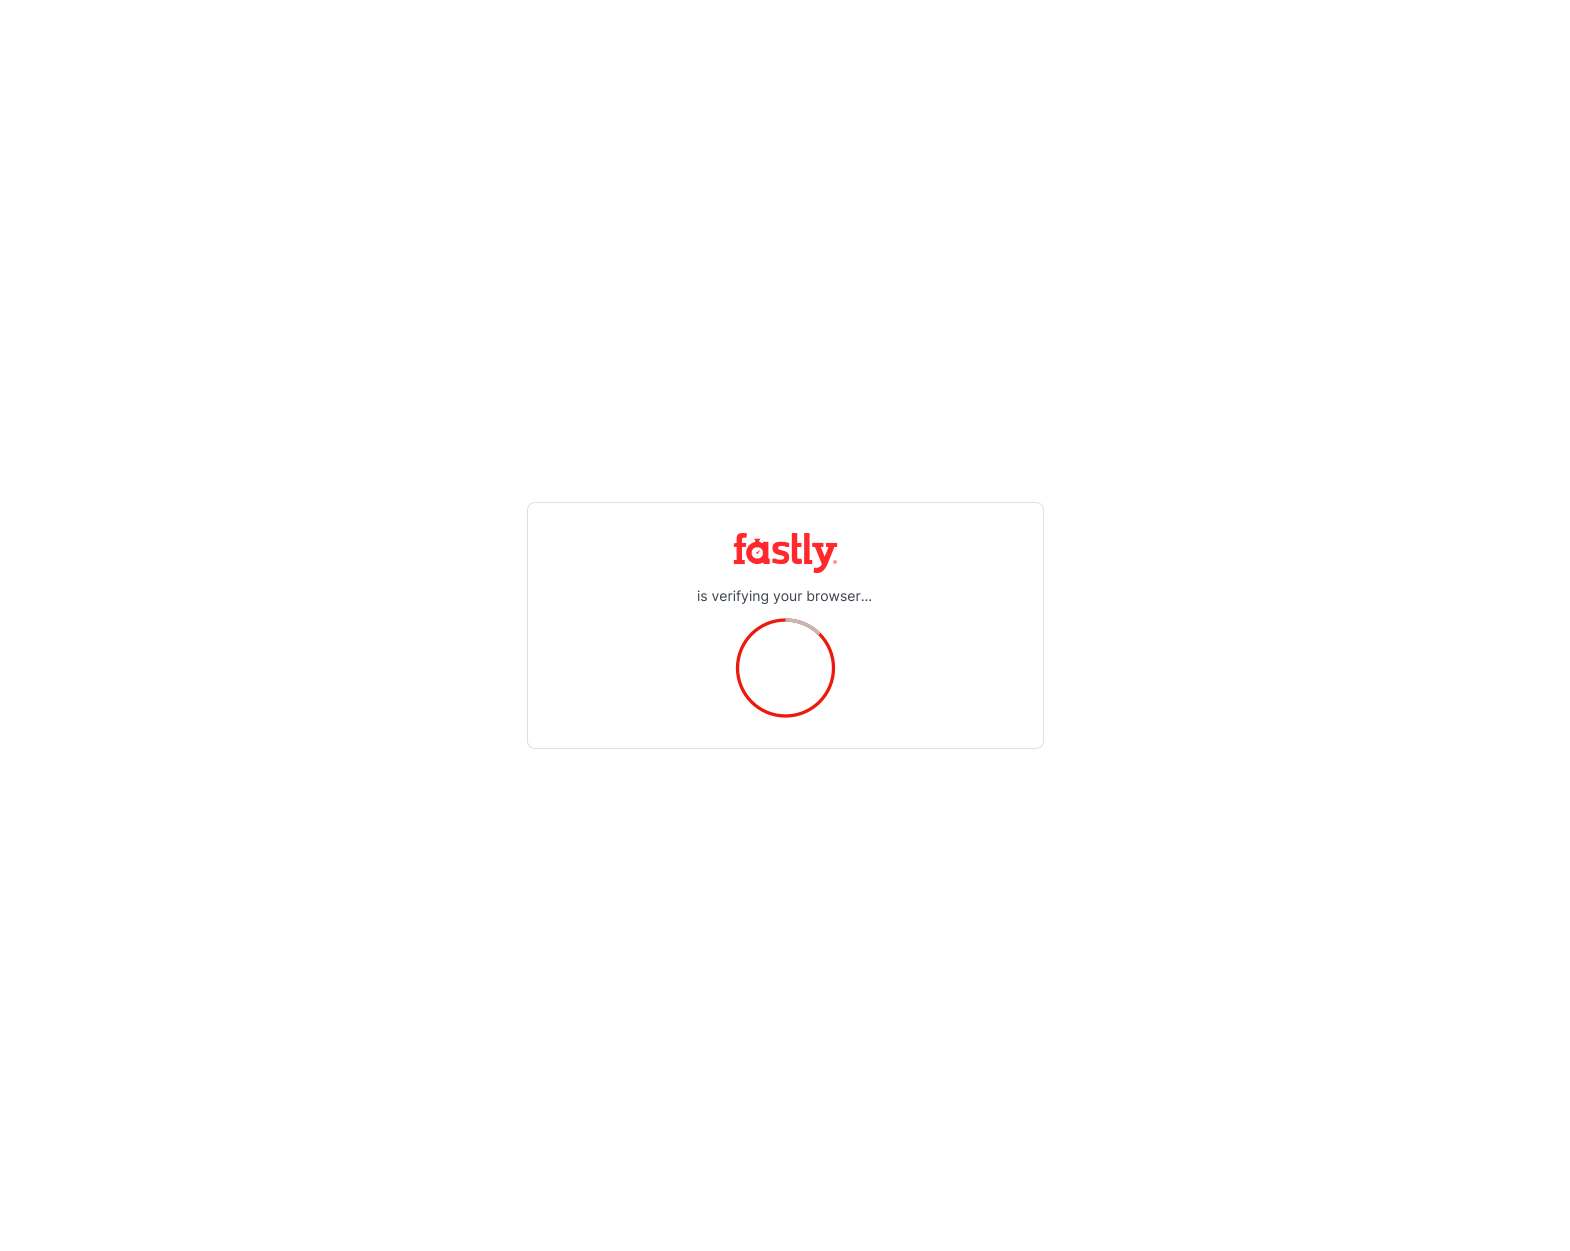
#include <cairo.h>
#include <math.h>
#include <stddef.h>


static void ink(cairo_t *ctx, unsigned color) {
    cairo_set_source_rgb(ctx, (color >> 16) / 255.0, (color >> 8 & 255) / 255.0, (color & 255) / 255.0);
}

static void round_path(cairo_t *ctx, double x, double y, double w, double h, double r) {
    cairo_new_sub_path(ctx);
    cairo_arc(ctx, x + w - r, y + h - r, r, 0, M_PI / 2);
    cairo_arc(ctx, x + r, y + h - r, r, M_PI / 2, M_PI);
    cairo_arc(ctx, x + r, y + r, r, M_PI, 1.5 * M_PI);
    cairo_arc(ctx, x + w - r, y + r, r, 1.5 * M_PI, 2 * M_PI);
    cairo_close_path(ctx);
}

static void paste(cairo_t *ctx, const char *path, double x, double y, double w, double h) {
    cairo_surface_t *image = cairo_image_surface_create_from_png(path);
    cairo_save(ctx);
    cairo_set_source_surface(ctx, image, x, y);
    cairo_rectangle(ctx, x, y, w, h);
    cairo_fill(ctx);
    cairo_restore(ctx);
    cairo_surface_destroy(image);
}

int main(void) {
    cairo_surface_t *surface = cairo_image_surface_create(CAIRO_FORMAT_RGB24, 1570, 1251);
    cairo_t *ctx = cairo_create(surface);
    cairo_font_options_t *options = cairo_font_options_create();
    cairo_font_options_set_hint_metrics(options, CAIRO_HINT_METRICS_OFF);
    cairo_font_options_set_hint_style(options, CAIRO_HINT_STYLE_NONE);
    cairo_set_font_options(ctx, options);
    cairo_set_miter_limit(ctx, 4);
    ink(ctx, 0xFFFFFF);
    cairo_paint(ctx);
    round_path(ctx, 527.5, 502.5, 516, 246, 7.5);
    ink(ctx, 0xDCE0E4);
    cairo_set_line_width(ctx, 1);
    cairo_stroke(ctx);
    paste(ctx, "media/1.png", 733, 533, 105, 40);
    cairo_select_font_face(ctx, "Inter", CAIRO_FONT_SLANT_NORMAL, CAIRO_FONT_WEIGHT_NORMAL);
    cairo_set_font_size(ctx, 14);
    ink(ctx, 0x3A424A);
    cairo_move_to(ctx, 697, 601);
    cairo_show_text(ctx, "is verifying your browser...");
    cairo_new_path(ctx);
    cairo_move_to(ctx, 737.5, 668);
    cairo_curve_to(ctx, 737.5, 641.5, 759, 620, 785.5, 620);
    cairo_curve_to(ctx, 812, 620, 833.5, 641.5, 833.5, 668);
    cairo_curve_to(ctx, 833.5, 694.5, 812, 716, 785.5, 716);
    cairo_curve_to(ctx, 759, 716, 737.5, 694.5, 737.5, 668);
    cairo_close_path(ctx);
    ink(ctx, 0xEB1A0C);
    cairo_set_line_width(ctx, 3.3);
    cairo_stroke(ctx);
    cairo_new_path(ctx);
    cairo_move_to(ctx, 819.5, 634);
    cairo_curve_to(ctx, 810.5, 625, 798, 620, 785.5, 620);
    ink(ctx, 0xC2BAB5);
    cairo_stroke(ctx);
    cairo_surface_write_to_png(surface, "image.png");
    cairo_font_options_destroy(options);
    cairo_destroy(ctx);
    cairo_surface_destroy(surface);
    return 0;
}
